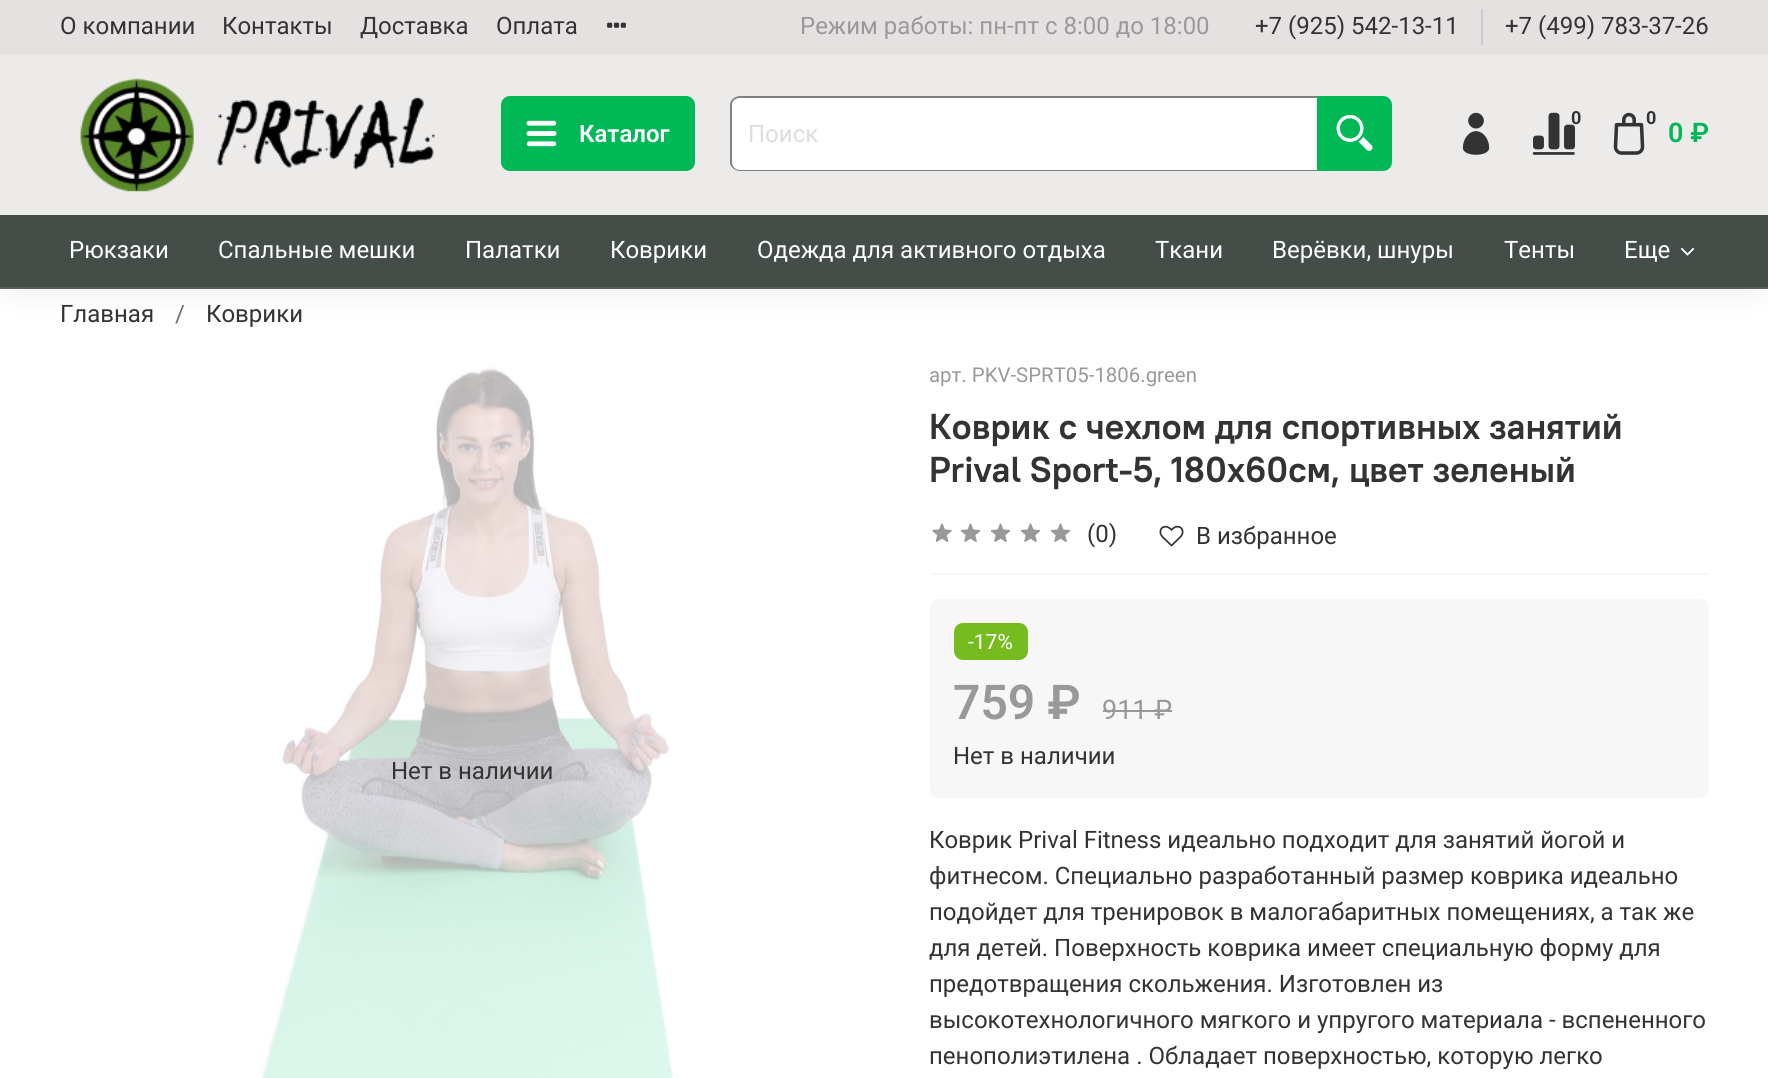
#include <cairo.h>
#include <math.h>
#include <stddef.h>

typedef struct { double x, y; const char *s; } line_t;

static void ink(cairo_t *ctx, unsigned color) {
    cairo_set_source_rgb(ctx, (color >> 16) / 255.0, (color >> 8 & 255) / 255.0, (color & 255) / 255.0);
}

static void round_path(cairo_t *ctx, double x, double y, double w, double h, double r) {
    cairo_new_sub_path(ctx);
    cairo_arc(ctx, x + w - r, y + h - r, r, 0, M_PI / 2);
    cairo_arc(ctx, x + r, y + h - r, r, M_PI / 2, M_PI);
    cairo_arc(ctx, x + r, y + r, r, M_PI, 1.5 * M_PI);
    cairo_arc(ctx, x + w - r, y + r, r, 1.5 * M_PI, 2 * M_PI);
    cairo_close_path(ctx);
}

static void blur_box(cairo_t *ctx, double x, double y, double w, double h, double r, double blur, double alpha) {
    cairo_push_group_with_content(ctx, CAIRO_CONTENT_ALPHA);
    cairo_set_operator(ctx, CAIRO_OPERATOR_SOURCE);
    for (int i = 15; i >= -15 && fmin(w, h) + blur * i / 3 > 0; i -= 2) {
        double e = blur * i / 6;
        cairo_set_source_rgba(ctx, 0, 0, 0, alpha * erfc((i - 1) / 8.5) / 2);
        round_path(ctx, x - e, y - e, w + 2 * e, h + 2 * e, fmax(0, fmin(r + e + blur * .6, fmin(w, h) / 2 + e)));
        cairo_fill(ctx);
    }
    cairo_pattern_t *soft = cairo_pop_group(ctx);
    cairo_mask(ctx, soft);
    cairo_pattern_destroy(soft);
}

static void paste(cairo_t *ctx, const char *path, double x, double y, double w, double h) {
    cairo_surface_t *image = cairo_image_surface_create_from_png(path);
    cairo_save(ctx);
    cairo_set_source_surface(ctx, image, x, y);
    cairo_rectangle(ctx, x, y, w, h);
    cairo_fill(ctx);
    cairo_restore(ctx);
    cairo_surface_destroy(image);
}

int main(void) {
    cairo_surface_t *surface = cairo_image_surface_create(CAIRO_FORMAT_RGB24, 1768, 1078);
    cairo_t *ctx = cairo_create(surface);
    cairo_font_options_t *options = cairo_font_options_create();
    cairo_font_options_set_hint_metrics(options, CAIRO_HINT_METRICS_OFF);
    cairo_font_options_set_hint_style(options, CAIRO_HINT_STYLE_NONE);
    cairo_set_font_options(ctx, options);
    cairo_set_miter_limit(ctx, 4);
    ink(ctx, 0xFFFFFF);
    cairo_paint(ctx);
    ink(ctx, 0xE6E1E1);
    cairo_rectangle(ctx, 0, 0, 1768, 54);
    cairo_fill(ctx);
    cairo_select_font_face(ctx, "Roboto", CAIRO_FONT_SLANT_NORMAL, CAIRO_FONT_WEIGHT_NORMAL);
    cairo_set_font_size(ctx, 24);
    ink(ctx, 0x333333);
    {
        static const line_t items[] = {
            {60, 34, "О компании"},
            {222, 34, "Контакты"},
            {360, 34, "Доставка"},
            {496, 34, "Оплата"},
        };
        for (size_t i = 0; i < sizeof items / sizeof *items; i++) {
            cairo_move_to(ctx, items[i].x, items[i].y);
            cairo_show_text(ctx, items[i].s);
        }
    }
    paste(ctx, "media/1.png", 607, 22, 19, 6);
    ink(ctx, 0x999999);
    cairo_move_to(ctx, 800, 34);
    cairo_show_text(ctx, "Режим работы: пн-пт с 8:00 до 18:00");
    ink(ctx, 0xCCCCCC);
    cairo_rectangle(ctx, 1481, 9, 2, 36);
    cairo_fill(ctx);
    ink(ctx, 0x333333);
    cairo_move_to(ctx, 1255, 34);
    cairo_show_text(ctx, "+7 (925) 542-13-11");
    cairo_move_to(ctx, 1505, 34);
    cairo_show_text(ctx, "+7 (499) 783-37-26");
    ink(ctx, 0xEDEAEA);
    cairo_rectangle(ctx, 0, 54, 1768, 161);
    cairo_fill(ctx);
    paste(ctx, "media/2.png", 80, 78, 355, 114);
    ink(ctx, 0x00B956);
    round_path(ctx, 501, 96, 194, 75, 9);
    cairo_fill(ctx);
    paste(ctx, "media/3.png", 526, 120, 31, 27);
    cairo_select_font_face(ctx, "Roboto SemiBold", CAIRO_FONT_SLANT_NORMAL, CAIRO_FONT_WEIGHT_NORMAL);
    ink(ctx, 0xFFFFFF);
    cairo_move_to(ctx, 579, 142);
    cairo_show_text(ctx, "Каталог");
    cairo_new_path(ctx);
    cairo_move_to(ctx, 740, 96);
    cairo_line_to(ctx, 1317, 96);
    cairo_line_to(ctx, 1317, 171);
    cairo_line_to(ctx, 740, 171);
    cairo_curve_to(ctx, 735, 171, 731, 167, 731, 162);
    cairo_line_to(ctx, 731, 105);
    cairo_curve_to(ctx, 731, 100, 735, 96, 740, 96);
    cairo_close_path(ctx);
    cairo_fill(ctx);
    ink(ctx, 0x808080);
    cairo_set_fill_rule(ctx, CAIRO_FILL_RULE_EVEN_ODD);
    cairo_new_path(ctx);
    cairo_move_to(ctx, 740, 96);
    cairo_line_to(ctx, 1317, 96);
    cairo_line_to(ctx, 1317, 171);
    cairo_line_to(ctx, 740, 171);
    cairo_curve_to(ctx, 735, 171, 730, 167, 730, 162);
    cairo_line_to(ctx, 730, 105);
    cairo_curve_to(ctx, 730, 100, 735, 96, 740, 96);
    cairo_close_path(ctx);
    cairo_move_to(ctx, 740, 98);
    cairo_line_to(ctx, 1317, 98);
    cairo_line_to(ctx, 1317, 170);
    cairo_line_to(ctx, 740, 170);
    cairo_curve_to(ctx, 735, 170, 732, 166, 732, 162);
    cairo_line_to(ctx, 732, 105);
    cairo_curve_to(ctx, 732, 101, 735, 98, 740, 98);
    cairo_close_path(ctx);
    cairo_fill(ctx);
    cairo_select_font_face(ctx, "Roboto", CAIRO_FONT_SLANT_NORMAL, CAIRO_FONT_WEIGHT_NORMAL);
    ink(ctx, 0xDDDDDD);
    cairo_move_to(ctx, 748, 142);
    cairo_show_text(ctx, "Поиск");
    ink(ctx, 0x00B956);
    cairo_new_path(ctx);
    cairo_move_to(ctx, 1317, 96);
    cairo_line_to(ctx, 1383, 96);
    cairo_curve_to(ctx, 1388, 96, 1392, 100, 1392, 105);
    cairo_line_to(ctx, 1392, 162);
    cairo_curve_to(ctx, 1392, 167, 1388, 171, 1383, 171);
    cairo_line_to(ctx, 1317, 171);
    cairo_close_path(ctx);
    cairo_fill(ctx);
    paste(ctx, "media/4.png", 1336, 114, 37, 37);
    paste(ctx, "media/5.png", 1462, 112, 28, 43);
    paste(ctx, "media/6.png", 1532, 112, 43, 43);
    cairo_select_font_face(ctx, "Roboto", CAIRO_FONT_SLANT_NORMAL, CAIRO_FONT_WEIGHT_BOLD);
    cairo_set_font_size(ctx, 18);
    ink(ctx, 0x333333);
    cairo_move_to(ctx, 1571, 124);
    cairo_show_text(ctx, "0");
    paste(ctx, "media/7.png", 1613, 112, 32, 43);
    cairo_move_to(ctx, 1646, 124);
    cairo_show_text(ctx, "0");
    cairo_select_font_face(ctx, "Roboto SemiBold", CAIRO_FONT_SLANT_NORMAL, CAIRO_FONT_WEIGHT_NORMAL);
    cairo_set_font_size(ctx, 27);
    ink(ctx, 0x00B956);
    cairo_move_to(ctx, 1668, 142);
    cairo_show_text(ctx, "0 ₽");
    ink(ctx, 0x000000);
    blur_box(ctx, 15, 245, 1739, 43, 0, 15, 0.1);
    ink(ctx, 0x454D49);
    cairo_rectangle(ctx, 0, 215, 1768, 72);
    cairo_fill(ctx);
    ink(ctx, 0x57615C);
    cairo_rectangle(ctx, 0, 287, 1768, 2);
    cairo_fill(ctx);
    cairo_select_font_face(ctx, "Roboto", CAIRO_FONT_SLANT_NORMAL, CAIRO_FONT_WEIGHT_NORMAL);
    cairo_set_font_size(ctx, 24);
    ink(ctx, 0xFFFFFF);
    {
        static const line_t items[] = {
            {69, 258, "Рюкзаки"},
            {218, 258, "Спальные мешки"},
            {465, 258, "Палатки"},
            {610, 258, "Коврики"},
            {757, 258, "Одежда для активного отдыха"},
            {1155, 258, "Ткани"},
            {1272, 258, "Верёвки, шнуры"},
            {1504, 258, "Тенты"},
            {1624, 258, "Еще"},
        };
        for (size_t i = 0; i < sizeof items / sizeof *items; i++) {
            cairo_move_to(ctx, items[i].x, items[i].y);
            cairo_show_text(ctx, items[i].s);
        }
    }
    paste(ctx, "media/8.png", 1680, 247, 15, 9);
    ink(ctx, 0x333333);
    cairo_move_to(ctx, 60, 322);
    cairo_show_text(ctx, "Главная");
    ink(ctx, 0x707070);
    cairo_move_to(ctx, 175, 322);
    cairo_show_text(ctx, "/");
    ink(ctx, 0x333333);
    cairo_move_to(ctx, 206, 322);
    cairo_show_text(ctx, "Коврики");
    cairo_set_font_size(ctx, 20.4);
    ink(ctx, 0x999999);
    cairo_move_to(ctx, 929, 382);
    cairo_show_text(ctx, "арт. PKV-SPRT05-1806.green");
    cairo_select_font_face(ctx, "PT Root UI", CAIRO_FONT_SLANT_NORMAL, CAIRO_FONT_WEIGHT_BOLD);
    cairo_set_font_size(ctx, 36);
    ink(ctx, 0x333333);
    cairo_move_to(ctx, 929, 439);
    cairo_show_text(ctx, "Коврик с чехлом для спортивных занятий");
    cairo_move_to(ctx, 929, 482);
    cairo_show_text(ctx, "Prival Sport-5, 180х60см, цвет зеленый");
    ink(ctx, 0xF7F7F7);
    cairo_rectangle(ctx, 930, 573, 779, 2);
    cairo_fill(ctx);
    paste(ctx, "media/9.png", 932, 523, 20, 19);
    paste(ctx, "media/10.png", 960, 523, 21, 19);
    paste(ctx, "media/10.png", 990, 523, 21, 19);
    paste(ctx, "media/10.png", 1020, 523, 21, 19);
    paste(ctx, "media/10.png", 1050, 523, 21, 19);
    cairo_select_font_face(ctx, "Roboto", CAIRO_FONT_SLANT_NORMAL, CAIRO_FONT_WEIGHT_NORMAL);
    cairo_set_font_size(ctx, 24);
    ink(ctx, 0x333333);
    cairo_move_to(ctx, 1087, 542);
    cairo_show_text(ctx, "(0)");
    paste(ctx, "media/11.png", 1159, 525, 25, 22);
    cairo_move_to(ctx, 1196, 544);
    cairo_show_text(ctx, "В избранное");
    ink(ctx, 0xF7F7F7);
    round_path(ctx, 930, 599, 779, 199, 9);
    cairo_fill(ctx);
    ink(ctx, 0x76BC21);
    round_path(ctx, 954, 623, 74, 37, 9);
    cairo_fill(ctx);
    cairo_set_font_size(ctx, 21);
    ink(ctx, 0xFFFFFF);
    cairo_move_to(ctx, 968, 649);
    cairo_show_text(ctx, "-17%");
    cairo_select_font_face(ctx, "Roboto SemiBold", CAIRO_FONT_SLANT_NORMAL, CAIRO_FONT_WEIGHT_NORMAL);
    cairo_set_font_size(ctx, 48);
    ink(ctx, 0x999999);
    cairo_move_to(ctx, 953, 719);
    cairo_show_text(ctx, "759 ₽");
    cairo_select_font_face(ctx, "Roboto", CAIRO_FONT_SLANT_NORMAL, CAIRO_FONT_WEIGHT_NORMAL);
    cairo_set_font_size(ctx, 27);
    cairo_move_to(ctx, 1102, 719);
    cairo_show_text(ctx, "911 ₽");
    cairo_rectangle(ctx, 1103, 710, 69, 2);
    cairo_fill(ctx);
    cairo_set_font_size(ctx, 24);
    ink(ctx, 0x333333);
    cairo_move_to(ctx, 953, 764);
    cairo_show_text(ctx, "Нет в наличии");
    paste(ctx, "media/12.png", 262, 367, 412, 711);
    {
        static const line_t items[] = {
            {391, 779, "Нет в наличии"},
            {929, 848, "Коврик Prival Fitness идеально подходит для занятий йогой и"},
            {929, 884, "фитнесом. Специально разработанный размер коврика идеально"},
            {929, 920, "подойдет для тренировок в малогабаритных помещениях, а так же"},
            {929, 956, "для детей. Поверхность коврика имеет специальную форму для"},
            {929, 992, "предотвращения скольжения. Изготовлен из"},
            {929, 1028, "высокотехнологичного мягкого и упругого материала - вспененного"},
            {929, 1064, "пенополиэтилена . Обладает поверхностью, которую легко"},
        };
        for (size_t i = 0; i < sizeof items / sizeof *items; i++) {
            cairo_move_to(ctx, items[i].x, items[i].y);
            cairo_show_text(ctx, items[i].s);
        }
    }
    cairo_surface_write_to_png(surface, "image.png");
    cairo_font_options_destroy(options);
    cairo_destroy(ctx);
    cairo_surface_destroy(surface);
    return 0;
}
